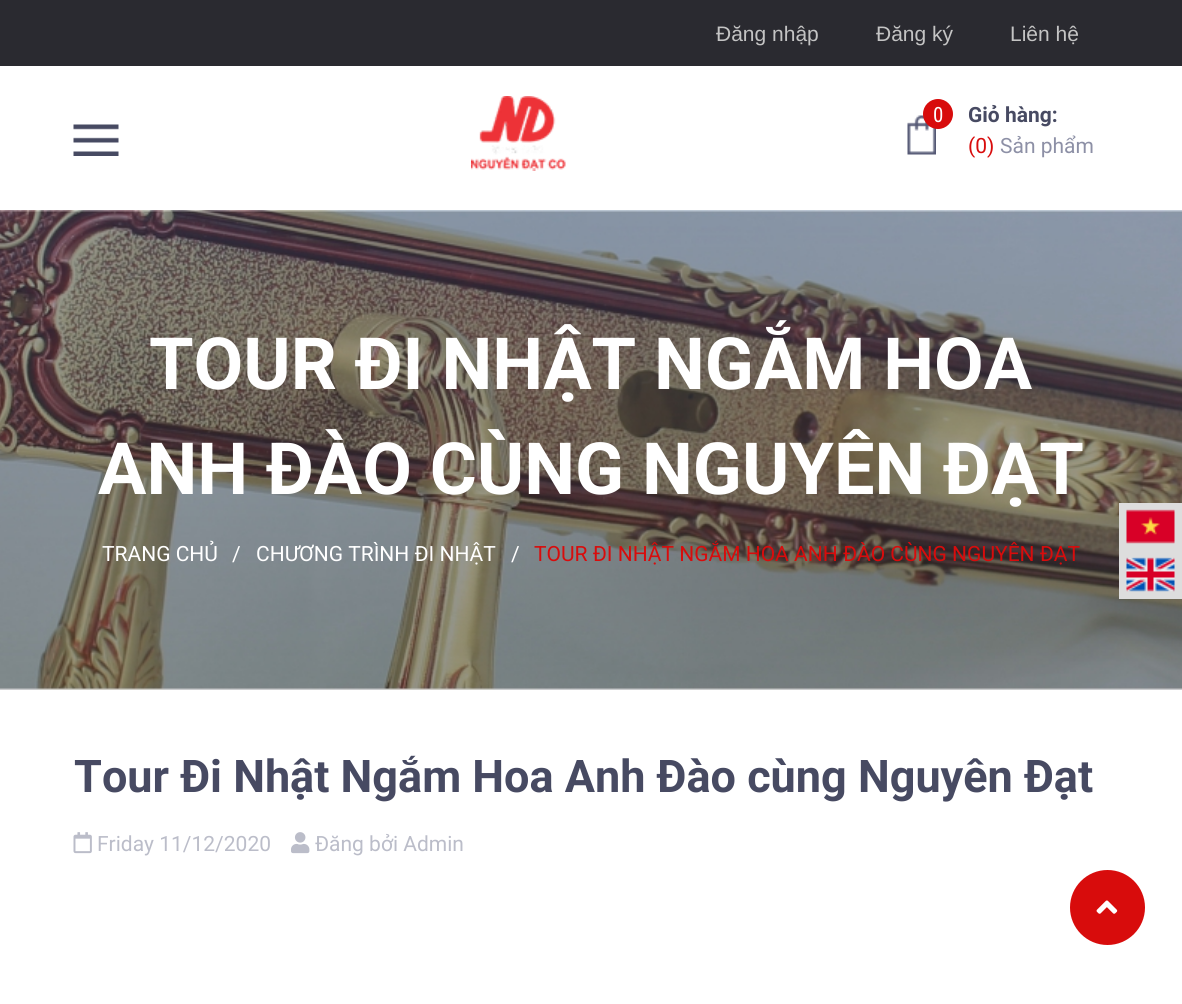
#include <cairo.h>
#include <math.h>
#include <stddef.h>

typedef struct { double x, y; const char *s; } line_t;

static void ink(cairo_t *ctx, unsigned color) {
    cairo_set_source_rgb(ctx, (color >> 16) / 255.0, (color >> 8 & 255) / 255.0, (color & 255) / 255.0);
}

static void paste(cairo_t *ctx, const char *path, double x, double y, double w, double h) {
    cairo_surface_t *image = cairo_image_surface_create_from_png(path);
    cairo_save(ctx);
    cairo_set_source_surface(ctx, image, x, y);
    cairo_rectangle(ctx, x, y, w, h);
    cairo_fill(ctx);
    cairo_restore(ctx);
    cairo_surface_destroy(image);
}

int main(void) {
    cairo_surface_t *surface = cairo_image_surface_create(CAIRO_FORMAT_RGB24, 1182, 1004);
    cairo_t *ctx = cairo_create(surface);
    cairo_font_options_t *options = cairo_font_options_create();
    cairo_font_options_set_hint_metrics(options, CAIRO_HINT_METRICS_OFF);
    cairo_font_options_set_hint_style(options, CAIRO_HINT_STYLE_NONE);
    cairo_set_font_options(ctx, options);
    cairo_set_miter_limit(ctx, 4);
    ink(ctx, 0xFFFFFF);
    cairo_paint(ctx);
    ink(ctx, 0x2A2A30);
    cairo_rectangle(ctx, 0, 0, 1182, 66);
    cairo_fill(ctx);
    cairo_select_font_face(ctx, "Liberation Sans", CAIRO_FONT_SLANT_NORMAL, CAIRO_FONT_WEIGHT_NORMAL);
    cairo_set_font_size(ctx, 21);
    ink(ctx, 0xC4C4C4);
    {
        static const line_t items[] = {
            {716, 41, "Đăng nhập"},
            {876, 41, "Đăng ký"},
            {1010, 41, "Liên hệ"},
        };
        for (size_t i = 0; i < sizeof items / sizeof *items; i++) {
            cairo_move_to(ctx, items[i].x, items[i].y);
            cairo_show_text(ctx, items[i].s);
        }
    }
    paste(ctx, "media/1.png", 73, 124, 46, 32);
    paste(ctx, "media/2.png", 471, 96, 95, 75);
    paste(ctx, "media/3.png", 907, 115, 29, 40);
    ink(ctx, 0xD80C0C);
    cairo_arc(ctx, 938, 114, 15, 0, 2 * M_PI);
    cairo_fill(ctx);
    cairo_select_font_face(ctx, "Roboto Condensed", CAIRO_FONT_SLANT_NORMAL, CAIRO_FONT_WEIGHT_NORMAL);
    ink(ctx, 0xFFFFFF);
    cairo_move_to(ctx, 933, 122);
    cairo_show_text(ctx, "0");
    cairo_select_font_face(ctx, "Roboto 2", CAIRO_FONT_SLANT_NORMAL, CAIRO_FONT_WEIGHT_BOLD);
    ink(ctx, 0x474A62);
    cairo_move_to(ctx, 968, 122);
    cairo_show_text(ctx, "Giỏ hàng:");
    cairo_select_font_face(ctx, "Roboto", CAIRO_FONT_SLANT_NORMAL, CAIRO_FONT_WEIGHT_NORMAL);
    ink(ctx, 0xD80C0C);
    cairo_move_to(ctx, 968, 153);
    cairo_show_text(ctx, "(0)");
    ink(ctx, 0x8D90A6);
    cairo_move_to(ctx, 1000, 153);
    cairo_show_text(ctx, "Sản phẩm");
    paste(ctx, "media/4.png", 0, 210, 1182, 480);
    cairo_select_font_face(ctx, "Roboto", CAIRO_FONT_SLANT_NORMAL, CAIRO_FONT_WEIGHT_BOLD);
    cairo_set_font_size(ctx, 72);
    ink(ctx, 0xFFFFFF);
    cairo_move_to(ctx, 149, 389);
    cairo_show_text(ctx, "TOUR ĐI NHẬT NGẮM HOA");
    cairo_move_to(ctx, 98, 494);
    cairo_show_text(ctx, "ANH ĐÀO CÙNG NGUYÊN ĐẠT");
    cairo_select_font_face(ctx, "Roboto", CAIRO_FONT_SLANT_NORMAL, CAIRO_FONT_WEIGHT_NORMAL);
    cairo_set_font_size(ctx, 21);
    {
        static const line_t items[] = {
            {102, 561, "TRANG CHỦ"},
            {232, 561, "/"},
            {256, 561, "CHƯƠNG TRÌNH ĐI NHẬT"},
            {511, 561, "/"},
        };
        for (size_t i = 0; i < sizeof items / sizeof *items; i++) {
            cairo_move_to(ctx, items[i].x, items[i].y);
            cairo_show_text(ctx, items[i].s);
        }
    }
    ink(ctx, 0xD80C0C);
    cairo_move_to(ctx, 534, 561);
    cairo_show_text(ctx, "TOUR ĐI NHẬT NGẮM HOA ANH ĐÀO CÙNG NGUYÊN ĐẠT");
    cairo_select_font_face(ctx, "Roboto", CAIRO_FONT_SLANT_NORMAL, CAIRO_FONT_WEIGHT_BOLD);
    cairo_set_font_size(ctx, 45);
    ink(ctx, 0x474A62);
    cairo_move_to(ctx, 74, 792);
    cairo_show_text(ctx, "Tour Đi Nhật Ngắm Hoa Anh Đào cùng Nguyên Đạt");
    paste(ctx, "media/5.png", 73, 832, 19, 22);
    cairo_select_font_face(ctx, "Roboto", CAIRO_FONT_SLANT_NORMAL, CAIRO_FONT_WEIGHT_NORMAL);
    cairo_set_font_size(ctx, 21);
    ink(ctx, 0xBBBDC9);
    cairo_move_to(ctx, 97, 851);
    cairo_show_text(ctx, "Friday 11/12/2020");
    paste(ctx, "media/6.png", 291, 832, 19, 22);
    cairo_move_to(ctx, 315, 851);
    cairo_show_text(ctx, "Đăng bởi Admin");
    ink(ctx, 0xD80C0C);
    cairo_new_path(ctx);
    cairo_arc(ctx, 1107.5, 907.5, 37.5, 0, 2 * M_PI);
    cairo_fill(ctx);
    paste(ctx, "media/7.png", 1096, 900, 22, 14);
    ink(ctx, 0xDDDDDD);
    cairo_rectangle(ctx, 1119, 503, 63, 96);
    cairo_fill(ctx);
    paste(ctx, "media/8.png", 1126, 509, 49, 35);
    paste(ctx, "media/9.png", 1126, 557, 49, 35);
    cairo_surface_write_to_png(surface, "image.png");
    cairo_font_options_destroy(options);
    cairo_destroy(ctx);
    cairo_surface_destroy(surface);
    return 0;
}
